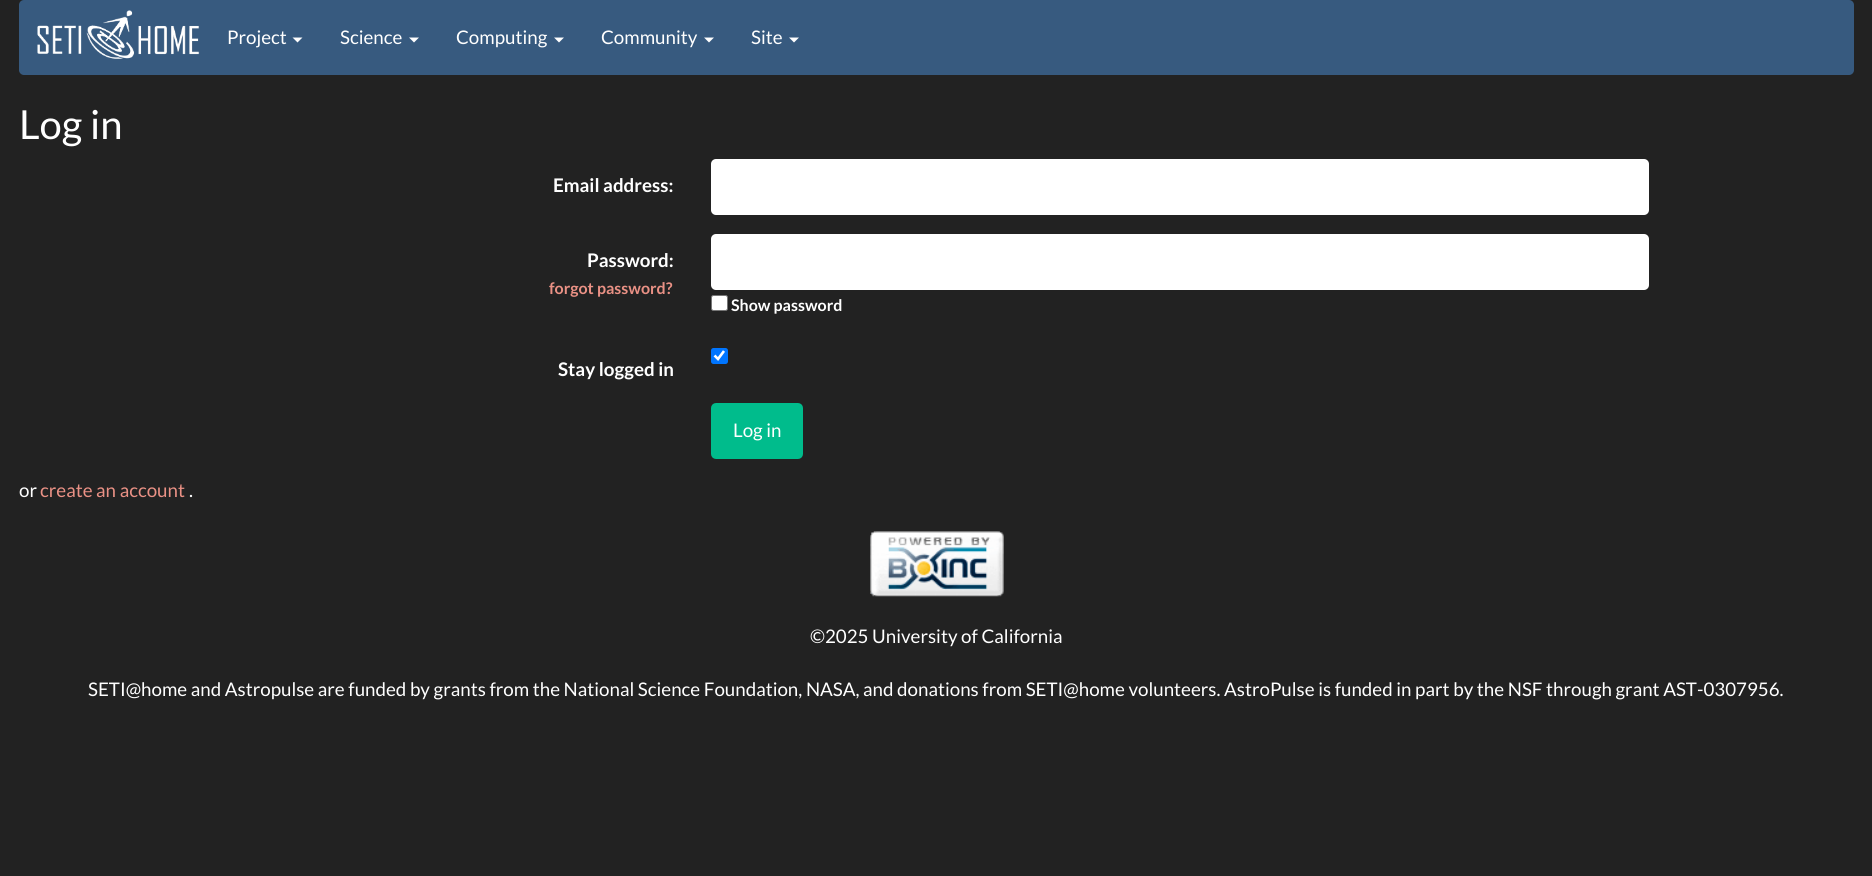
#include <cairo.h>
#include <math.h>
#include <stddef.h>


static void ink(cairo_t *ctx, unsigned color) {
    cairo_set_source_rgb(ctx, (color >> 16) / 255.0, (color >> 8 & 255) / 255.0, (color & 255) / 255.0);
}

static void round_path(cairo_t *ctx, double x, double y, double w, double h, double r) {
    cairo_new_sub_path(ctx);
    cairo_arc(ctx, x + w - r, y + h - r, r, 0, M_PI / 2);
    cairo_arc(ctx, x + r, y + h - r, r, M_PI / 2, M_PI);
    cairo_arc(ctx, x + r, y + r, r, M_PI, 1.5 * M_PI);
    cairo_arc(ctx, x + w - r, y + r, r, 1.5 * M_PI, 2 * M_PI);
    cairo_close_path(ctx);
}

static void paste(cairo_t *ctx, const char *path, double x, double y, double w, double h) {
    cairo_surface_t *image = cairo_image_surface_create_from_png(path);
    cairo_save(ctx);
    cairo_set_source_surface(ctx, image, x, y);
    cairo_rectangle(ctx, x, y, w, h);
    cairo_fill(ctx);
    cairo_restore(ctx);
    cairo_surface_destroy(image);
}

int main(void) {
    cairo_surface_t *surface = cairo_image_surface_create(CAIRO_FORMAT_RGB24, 1872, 876);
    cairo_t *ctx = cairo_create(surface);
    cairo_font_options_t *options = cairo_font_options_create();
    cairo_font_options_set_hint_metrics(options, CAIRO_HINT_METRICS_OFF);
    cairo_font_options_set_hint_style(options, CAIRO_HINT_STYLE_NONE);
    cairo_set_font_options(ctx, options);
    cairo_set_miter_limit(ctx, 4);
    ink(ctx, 0x222222);
    cairo_paint(ctx);
    ink(ctx, 0x375A7F);
    round_path(ctx, 19, 0, 1835, 75, 5);
    cairo_fill(ctx);
    paste(ctx, "media/1.png", 37, 10, 163, 49);
    cairo_select_font_face(ctx, "Lato", CAIRO_FONT_SLANT_NORMAL, CAIRO_FONT_WEIGHT_NORMAL);
    cairo_set_font_size(ctx, 18.75);
    ink(ctx, 0xFFFFFF);
    cairo_move_to(ctx, 227, 44);
    cairo_show_text(ctx, "Project");
    cairo_new_path(ctx);
    cairo_move_to(ctx, 292.5, 37.5);
    cairo_line_to(ctx, 302.5, 37.5);
    cairo_line_to(ctx, 297.5, 42.5);
    cairo_close_path(ctx);
    cairo_fill(ctx);
    cairo_move_to(ctx, 340, 44);
    cairo_show_text(ctx, "Science");
    cairo_new_path(ctx);
    cairo_move_to(ctx, 409, 37.5);
    cairo_line_to(ctx, 419, 37.5);
    cairo_line_to(ctx, 414, 42.5);
    cairo_close_path(ctx);
    cairo_fill(ctx);
    cairo_move_to(ctx, 456, 44);
    cairo_show_text(ctx, "Computing");
    cairo_new_path(ctx);
    cairo_move_to(ctx, 554, 37.5);
    cairo_line_to(ctx, 564, 37.5);
    cairo_line_to(ctx, 559, 42.5);
    cairo_close_path(ctx);
    cairo_fill(ctx);
    cairo_move_to(ctx, 601, 44);
    cairo_show_text(ctx, "Community");
    cairo_new_path(ctx);
    cairo_move_to(ctx, 704, 37.5);
    cairo_line_to(ctx, 714, 37.5);
    cairo_line_to(ctx, 709, 42.5);
    cairo_close_path(ctx);
    cairo_fill(ctx);
    cairo_move_to(ctx, 751, 44);
    cairo_show_text(ctx, "Site");
    cairo_new_path(ctx);
    cairo_move_to(ctx, 789, 37.5);
    cairo_line_to(ctx, 799, 37.5);
    cairo_line_to(ctx, 794, 42.5);
    cairo_close_path(ctx);
    cairo_fill(ctx);
    cairo_set_font_size(ctx, 40);
    cairo_move_to(ctx, 19, 139);
    cairo_show_text(ctx, "Log in");
    cairo_select_font_face(ctx, "Lato", CAIRO_FONT_SLANT_NORMAL, CAIRO_FONT_WEIGHT_BOLD);
    cairo_set_font_size(ctx, 18.75);
    cairo_move_to(ctx, 553, 192);
    cairo_show_text(ctx, "Email address:");
    round_path(ctx, 711, 159, 938, 56, 5);
    cairo_fill(ctx);
    cairo_move_to(ctx, 587, 267);
    cairo_show_text(ctx, "Password:");
    cairo_set_font_size(ctx, 16);
    ink(ctx, 0xEA9185);
    cairo_move_to(ctx, 549, 294);
    cairo_show_text(ctx, "forgot password?");
    ink(ctx, 0xFFFFFF);
    round_path(ctx, 711, 234, 938, 56, 5);
    cairo_fill(ctx);
    round_path(ctx, 711.5, 295.5, 16, 15, 2);
    cairo_fill_preserve(ctx);
    ink(ctx, 0x767676);
    cairo_set_line_width(ctx, 1);
    cairo_stroke(ctx);
    ink(ctx, 0xFFFFFF);
    cairo_move_to(ctx, 731, 311);
    cairo_show_text(ctx, "Show password");
    ink(ctx, 0x0075FF);
    round_path(ctx, 711, 348, 17, 16, 2.5);
    cairo_fill(ctx);
    cairo_new_path(ctx);
    cairo_move_to(ctx, 714.5, 355.5);
    cairo_line_to(ctx, 718, 359);
    cairo_line_to(ctx, 724, 351);
    ink(ctx, 0xFFFFFF);
    cairo_set_line_width(ctx, 2.6);
    cairo_stroke(ctx);
    cairo_set_font_size(ctx, 18.75);
    cairo_move_to(ctx, 558, 376);
    cairo_show_text(ctx, "Stay logged in");
    ink(ctx, 0x00BC8C);
    round_path(ctx, 712.5, 404.5, 89, 53, 3.5);
    cairo_fill_preserve(ctx);
    cairo_set_line_width(ctx, 3);
    cairo_stroke(ctx);
    cairo_select_font_face(ctx, "Lato", CAIRO_FONT_SLANT_NORMAL, CAIRO_FONT_WEIGHT_NORMAL);
    ink(ctx, 0xFFFFFF);
    cairo_move_to(ctx, 733, 437);
    cairo_show_text(ctx, "Log in");
    cairo_move_to(ctx, 19, 497);
    cairo_show_text(ctx, "or");
    ink(ctx, 0xEA9185);
    cairo_move_to(ctx, 40, 497);
    cairo_show_text(ctx, "create an account");
    ink(ctx, 0xFFFFFF);
    cairo_move_to(ctx, 189, 497);
    cairo_show_text(ctx, ".");
    paste(ctx, "media/2.png", 870, 531, 134, 66);
    cairo_move_to(ctx, 810, 643);
    cairo_show_text(ctx, "©2025 University of California");
    cairo_move_to(ctx, 88, 696);
    cairo_show_text(ctx, "SETI@home and Astropulse are funded by grants from the National Science Foundation, NASA, and donations from SETI@home volunteers. AstroPulse is funded in part by the NSF through grant AST-0307956.");
    cairo_surface_write_to_png(surface, "image.png");
    cairo_font_options_destroy(options);
    cairo_destroy(ctx);
    cairo_surface_destroy(surface);
    return 0;
}
